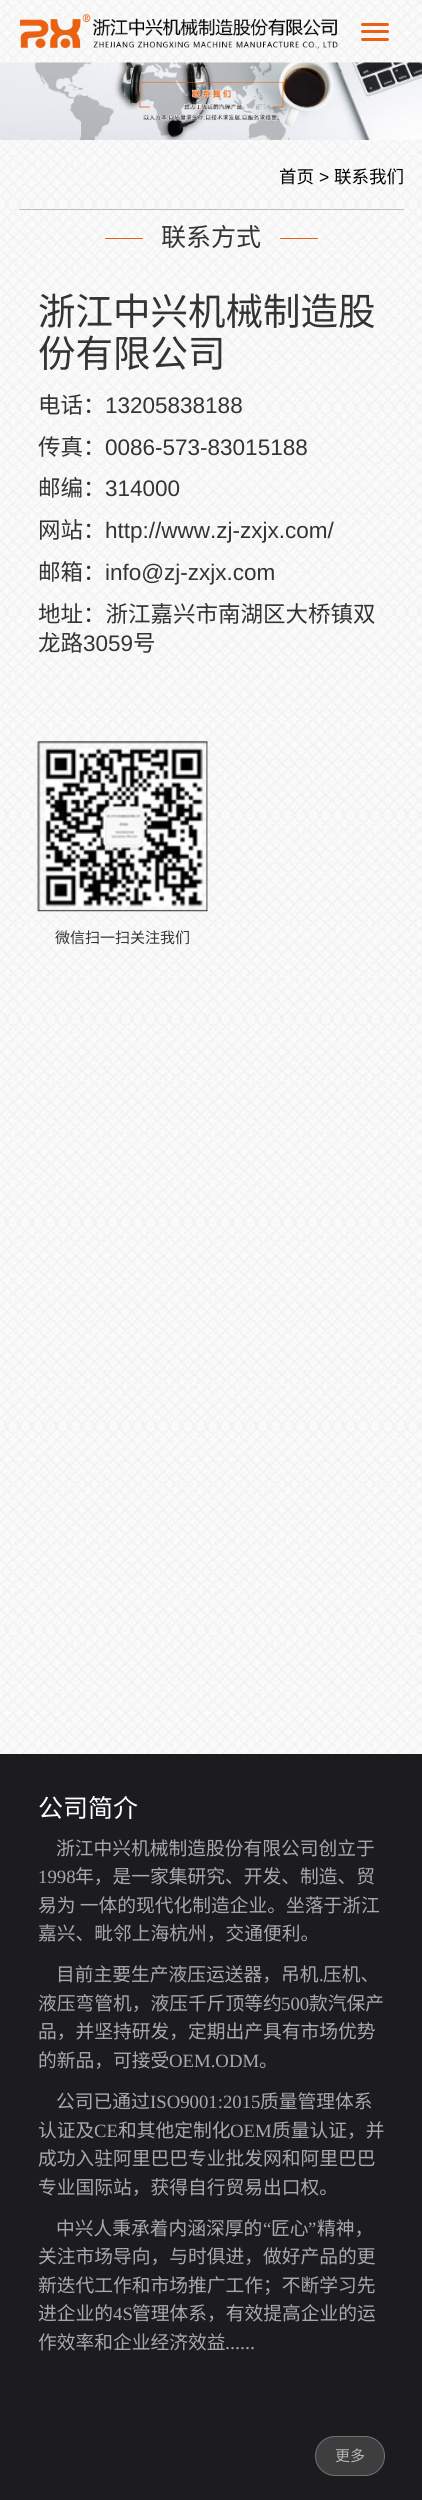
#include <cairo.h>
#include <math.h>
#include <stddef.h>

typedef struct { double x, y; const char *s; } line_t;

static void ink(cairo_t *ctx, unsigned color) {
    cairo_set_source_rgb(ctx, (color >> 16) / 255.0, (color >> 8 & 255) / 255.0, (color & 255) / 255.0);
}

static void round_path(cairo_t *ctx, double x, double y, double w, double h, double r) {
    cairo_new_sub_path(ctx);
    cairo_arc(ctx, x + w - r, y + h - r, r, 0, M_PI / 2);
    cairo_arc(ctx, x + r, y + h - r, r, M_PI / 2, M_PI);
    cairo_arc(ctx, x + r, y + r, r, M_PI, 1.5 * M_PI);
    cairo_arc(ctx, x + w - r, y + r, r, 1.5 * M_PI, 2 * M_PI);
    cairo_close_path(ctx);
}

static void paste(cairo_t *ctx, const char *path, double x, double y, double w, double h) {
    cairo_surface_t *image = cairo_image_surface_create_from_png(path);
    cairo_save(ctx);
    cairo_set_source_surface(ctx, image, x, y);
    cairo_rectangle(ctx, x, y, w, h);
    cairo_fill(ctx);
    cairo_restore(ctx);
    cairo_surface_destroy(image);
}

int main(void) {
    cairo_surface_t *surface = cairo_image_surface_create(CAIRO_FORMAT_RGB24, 422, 2500);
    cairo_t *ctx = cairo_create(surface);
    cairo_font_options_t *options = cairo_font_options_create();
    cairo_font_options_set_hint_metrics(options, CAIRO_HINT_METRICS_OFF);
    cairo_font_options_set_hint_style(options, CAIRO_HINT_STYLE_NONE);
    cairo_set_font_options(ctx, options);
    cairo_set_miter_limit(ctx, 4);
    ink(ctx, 0xFFFFFF);
    cairo_paint(ctx);
    paste(ctx, "media/1.png", 0, 0, 422, 1754);
    paste(ctx, "media/2.png", 20, 13, 318, 36);
    ink(ctx, 0xEB6112);
    round_path(ctx, 361, 23, 28, 3, 1.5);
    cairo_fill(ctx);
    round_path(ctx, 361, 30, 28, 3, 1.5);
    cairo_fill(ctx);
    round_path(ctx, 361, 38, 28, 3, 1.5);
    cairo_fill(ctx);
    paste(ctx, "media/3.png", 0, 62, 422, 78);
    ink(ctx, 0xBFBFBF);
    cairo_rectangle(ctx, 19, 209, 385, 1);
    cairo_fill(ctx);
    cairo_select_font_face(ctx, "Noto Sans CJK SC", CAIRO_FONT_SLANT_NORMAL, CAIRO_FONT_WEIGHT_NORMAL);
    cairo_set_font_size(ctx, 17.5);
    ink(ctx, 0x000000);
    cairo_move_to(ctx, 279, 183);
    cairo_show_text(ctx, "首页");
    cairo_select_font_face(ctx, "Liberation Sans", CAIRO_FONT_SLANT_NORMAL, CAIRO_FONT_WEIGHT_NORMAL);
    cairo_move_to(ctx, 319, 183);
    cairo_show_text(ctx, ">");
    cairo_select_font_face(ctx, "Noto Sans CJK SC", CAIRO_FONT_SLANT_NORMAL, CAIRO_FONT_WEIGHT_NORMAL);
    cairo_move_to(ctx, 334, 183);
    cairo_show_text(ctx, "联系我们");
    ink(ctx, 0xEB6112);
    cairo_rectangle(ctx, 105, 238, 38, 1);
    cairo_fill(ctx);
    cairo_set_font_size(ctx, 25);
    ink(ctx, 0x333333);
    cairo_move_to(ctx, 161, 246);
    cairo_show_text(ctx, "联系方式");
    ink(ctx, 0xEB6112);
    cairo_rectangle(ctx, 280, 238, 38, 1);
    cairo_fill(ctx);
    cairo_set_font_size(ctx, 37.5);
    ink(ctx, 0x333333);
    cairo_move_to(ctx, 38, 325);
    cairo_show_text(ctx, "浙江中兴机械制造股");
    cairo_move_to(ctx, 38, 367);
    cairo_show_text(ctx, "份有限公司");
    cairo_set_font_size(ctx, 22.5);
    cairo_move_to(ctx, 38, 413);
    cairo_show_text(ctx, "电话：");
    cairo_select_font_face(ctx, "Liberation Sans", CAIRO_FONT_SLANT_NORMAL, CAIRO_FONT_WEIGHT_NORMAL);
    cairo_move_to(ctx, 105, 413);
    cairo_show_text(ctx, "13205838188");
    cairo_select_font_face(ctx, "Noto Sans CJK SC", CAIRO_FONT_SLANT_NORMAL, CAIRO_FONT_WEIGHT_NORMAL);
    cairo_move_to(ctx, 38, 455);
    cairo_show_text(ctx, "传真：");
    cairo_select_font_face(ctx, "Liberation Sans", CAIRO_FONT_SLANT_NORMAL, CAIRO_FONT_WEIGHT_NORMAL);
    cairo_move_to(ctx, 105, 455);
    cairo_show_text(ctx, "0086-573-83015188");
    cairo_select_font_face(ctx, "Noto Sans CJK SC", CAIRO_FONT_SLANT_NORMAL, CAIRO_FONT_WEIGHT_NORMAL);
    cairo_move_to(ctx, 38, 496);
    cairo_show_text(ctx, "邮编：");
    cairo_select_font_face(ctx, "Liberation Sans", CAIRO_FONT_SLANT_NORMAL, CAIRO_FONT_WEIGHT_NORMAL);
    cairo_move_to(ctx, 105, 496);
    cairo_show_text(ctx, "314000");
    cairo_select_font_face(ctx, "Noto Sans CJK SC", CAIRO_FONT_SLANT_NORMAL, CAIRO_FONT_WEIGHT_NORMAL);
    cairo_move_to(ctx, 38, 538);
    cairo_show_text(ctx, "网站：");
    cairo_select_font_face(ctx, "Liberation Sans", CAIRO_FONT_SLANT_NORMAL, CAIRO_FONT_WEIGHT_NORMAL);
    cairo_move_to(ctx, 105, 538);
    cairo_show_text(ctx, "http://www.zj-zxjx.com/");
    cairo_select_font_face(ctx, "Noto Sans CJK SC", CAIRO_FONT_SLANT_NORMAL, CAIRO_FONT_WEIGHT_NORMAL);
    cairo_move_to(ctx, 38, 580);
    cairo_show_text(ctx, "邮箱：");
    cairo_select_font_face(ctx, "Liberation Sans", CAIRO_FONT_SLANT_NORMAL, CAIRO_FONT_WEIGHT_NORMAL);
    cairo_move_to(ctx, 105, 580);
    cairo_show_text(ctx, "info@zj-zxjx.com");
    cairo_select_font_face(ctx, "Noto Sans CJK SC", CAIRO_FONT_SLANT_NORMAL, CAIRO_FONT_WEIGHT_NORMAL);
    cairo_move_to(ctx, 38, 622);
    cairo_show_text(ctx, "地址：浙江嘉兴市南湖区大桥镇双");
    cairo_move_to(ctx, 38, 651);
    cairo_show_text(ctx, "龙路");
    cairo_select_font_face(ctx, "Liberation Sans", CAIRO_FONT_SLANT_NORMAL, CAIRO_FONT_WEIGHT_NORMAL);
    cairo_move_to(ctx, 83, 651);
    cairo_show_text(ctx, "3059");
    cairo_select_font_face(ctx, "Noto Sans CJK SC", CAIRO_FONT_SLANT_NORMAL, CAIRO_FONT_WEIGHT_NORMAL);
    cairo_move_to(ctx, 133, 651);
    cairo_show_text(ctx, "号");
    paste(ctx, "media/4.png", 37, 741, 171, 171);
    cairo_set_font_size(ctx, 15);
    cairo_move_to(ctx, 55, 943);
    cairo_show_text(ctx, "微信扫一扫关注我们");
    ink(ctx, 0x1C1C20);
    cairo_rectangle(ctx, 0, 1754, 422, 746);
    cairo_fill(ctx);
    cairo_set_font_size(ctx, 25);
    ink(ctx, 0xFEFEFE);
    cairo_move_to(ctx, 38, 1817);
    cairo_show_text(ctx, "公司简介");
    cairo_set_font_size(ctx, 18.75);
    ink(ctx, 0xA9A9A9);
    cairo_move_to(ctx, 56, 1855);
    cairo_show_text(ctx, "浙江中兴机械制造股份有限公司创立于");
    cairo_select_font_face(ctx, "Liberation Serif", CAIRO_FONT_SLANT_NORMAL, CAIRO_FONT_WEIGHT_NORMAL);
    cairo_move_to(ctx, 38, 1883);
    cairo_show_text(ctx, "1998");
    cairo_select_font_face(ctx, "Noto Sans CJK SC", CAIRO_FONT_SLANT_NORMAL, CAIRO_FONT_WEIGHT_NORMAL);
    {
        static const line_t items[] = {
            {75, 1883, "年，是一家集研究、开发、制造、贸"},
            {38, 1912, "易为 一体的现代化制造企业。坐落于浙江"},
            {38, 1940, "嘉兴、毗邻上海杭州，交通便利。"},
            {56, 1981, "目前主要生产液压运送器，吊机"},
        };
        for (size_t i = 0; i < sizeof items / sizeof *items; i++) {
            cairo_move_to(ctx, items[i].x, items[i].y);
            cairo_show_text(ctx, items[i].s);
        }
    }
    cairo_select_font_face(ctx, "Liberation Serif", CAIRO_FONT_SLANT_NORMAL, CAIRO_FONT_WEIGHT_NORMAL);
    cairo_move_to(ctx, 319, 1981);
    cairo_show_text(ctx, ".");
    cairo_select_font_face(ctx, "Noto Sans CJK SC", CAIRO_FONT_SLANT_NORMAL, CAIRO_FONT_WEIGHT_NORMAL);
    cairo_move_to(ctx, 323, 1981);
    cairo_show_text(ctx, "压机、");
    cairo_move_to(ctx, 38, 2010);
    cairo_show_text(ctx, "液压弯管机，液压千斤顶等约");
    cairo_select_font_face(ctx, "Liberation Serif", CAIRO_FONT_SLANT_NORMAL, CAIRO_FONT_WEIGHT_NORMAL);
    cairo_move_to(ctx, 281, 2010);
    cairo_show_text(ctx, "500");
    cairo_select_font_face(ctx, "Noto Sans CJK SC", CAIRO_FONT_SLANT_NORMAL, CAIRO_FONT_WEIGHT_NORMAL);
    {
        static const line_t items[] = {
            {309, 2010, "款汽保产"},
            {38, 2038, "品，并坚持研发，定期出产具有市场优势"},
            {38, 2067, "的新品，可接受"},
        };
        for (size_t i = 0; i < sizeof items / sizeof *items; i++) {
            cairo_move_to(ctx, items[i].x, items[i].y);
            cairo_show_text(ctx, items[i].s);
        }
    }
    cairo_select_font_face(ctx, "Liberation Serif", CAIRO_FONT_SLANT_NORMAL, CAIRO_FONT_WEIGHT_NORMAL);
    cairo_move_to(ctx, 169, 2067);
    cairo_show_text(ctx, "OEM.ODM");
    cairo_select_font_face(ctx, "Noto Sans CJK SC", CAIRO_FONT_SLANT_NORMAL, CAIRO_FONT_WEIGHT_NORMAL);
    cairo_move_to(ctx, 259, 2067);
    cairo_show_text(ctx, "。");
    cairo_move_to(ctx, 56, 2108);
    cairo_show_text(ctx, "公司已通过");
    cairo_select_font_face(ctx, "Liberation Serif", CAIRO_FONT_SLANT_NORMAL, CAIRO_FONT_WEIGHT_NORMAL);
    cairo_move_to(ctx, 150, 2108);
    cairo_show_text(ctx, "ISO9001:2015");
    cairo_select_font_face(ctx, "Noto Sans CJK SC", CAIRO_FONT_SLANT_NORMAL, CAIRO_FONT_WEIGHT_NORMAL);
    cairo_move_to(ctx, 260, 2108);
    cairo_show_text(ctx, "质量管理体系");
    cairo_move_to(ctx, 38, 2137);
    cairo_show_text(ctx, "认证及");
    cairo_select_font_face(ctx, "Liberation Serif", CAIRO_FONT_SLANT_NORMAL, CAIRO_FONT_WEIGHT_NORMAL);
    cairo_move_to(ctx, 94, 2137);
    cairo_show_text(ctx, "CE");
    cairo_select_font_face(ctx, "Noto Sans CJK SC", CAIRO_FONT_SLANT_NORMAL, CAIRO_FONT_WEIGHT_NORMAL);
    cairo_move_to(ctx, 118, 2137);
    cairo_show_text(ctx, "和其他定制化");
    cairo_select_font_face(ctx, "Liberation Serif", CAIRO_FONT_SLANT_NORMAL, CAIRO_FONT_WEIGHT_NORMAL);
    cairo_move_to(ctx, 230, 2137);
    cairo_show_text(ctx, "OEM");
    cairo_select_font_face(ctx, "Noto Sans CJK SC", CAIRO_FONT_SLANT_NORMAL, CAIRO_FONT_WEIGHT_NORMAL);
    {
        static const line_t items[] = {
            {272, 2137, "质量认证，并"},
            {38, 2165, "成功入驻阿里巴巴专业批发网和阿里巴巴"},
            {38, 2194, "专业国际站，获得自行贸易出口权。"},
            {56, 2235, "中兴人秉承着内涵深厚的"},
        };
        for (size_t i = 0; i < sizeof items / sizeof *items; i++) {
            cairo_move_to(ctx, items[i].x, items[i].y);
            cairo_show_text(ctx, items[i].s);
        }
    }
    cairo_select_font_face(ctx, "Liberation Serif", CAIRO_FONT_SLANT_NORMAL, CAIRO_FONT_WEIGHT_NORMAL);
    cairo_move_to(ctx, 263, 2235);
    cairo_show_text(ctx, "“");
    cairo_select_font_face(ctx, "Noto Sans CJK SC", CAIRO_FONT_SLANT_NORMAL, CAIRO_FONT_WEIGHT_NORMAL);
    cairo_move_to(ctx, 271, 2235);
    cairo_show_text(ctx, "匠心");
    cairo_select_font_face(ctx, "Liberation Serif", CAIRO_FONT_SLANT_NORMAL, CAIRO_FONT_WEIGHT_NORMAL);
    cairo_move_to(ctx, 308, 2235);
    cairo_show_text(ctx, "”");
    cairo_select_font_face(ctx, "Noto Sans CJK SC", CAIRO_FONT_SLANT_NORMAL, CAIRO_FONT_WEIGHT_NORMAL);
    {
        static const line_t items[] = {
            {317, 2235, "精神，"},
            {38, 2263, "关注市场导向，与时俱进，做好产品的更"},
            {38, 2292, "新迭代工作和市场推广工作；不断学习先"},
            {38, 2320, "进企业的"},
        };
        for (size_t i = 0; i < sizeof items / sizeof *items; i++) {
            cairo_move_to(ctx, items[i].x, items[i].y);
            cairo_show_text(ctx, items[i].s);
        }
    }
    cairo_select_font_face(ctx, "Liberation Serif", CAIRO_FONT_SLANT_NORMAL, CAIRO_FONT_WEIGHT_NORMAL);
    cairo_move_to(ctx, 113, 2320);
    cairo_show_text(ctx, "4S");
    cairo_select_font_face(ctx, "Noto Sans CJK SC", CAIRO_FONT_SLANT_NORMAL, CAIRO_FONT_WEIGHT_NORMAL);
    cairo_move_to(ctx, 132, 2320);
    cairo_show_text(ctx, "管理体系，有效提高企业的运");
    cairo_move_to(ctx, 38, 2349);
    cairo_show_text(ctx, "作效率和企业经济效益");
    cairo_select_font_face(ctx, "Liberation Serif", CAIRO_FONT_SLANT_NORMAL, CAIRO_FONT_WEIGHT_NORMAL);
    cairo_set_font_size(ctx, 20);
    cairo_move_to(ctx, 225, 2349);
    cairo_show_text(ctx, "......");
    ink(ctx, 0x3F3E3E);
    round_path(ctx, 315.5, 2436.5, 69, 39, 19.5);
    cairo_fill_preserve(ctx);
    ink(ctx, 0x727272);
    cairo_set_line_width(ctx, 1);
    cairo_stroke(ctx);
    cairo_select_font_face(ctx, "Noto Sans CJK SC", CAIRO_FONT_SLANT_NORMAL, CAIRO_FONT_WEIGHT_NORMAL);
    cairo_set_font_size(ctx, 15);
    ink(ctx, 0xB7B6B6);
    cairo_move_to(ctx, 335, 2461);
    cairo_show_text(ctx, "更多");
    cairo_surface_write_to_png(surface, "image.png");
    cairo_font_options_destroy(options);
    cairo_destroy(ctx);
    cairo_surface_destroy(surface);
    return 0;
}
